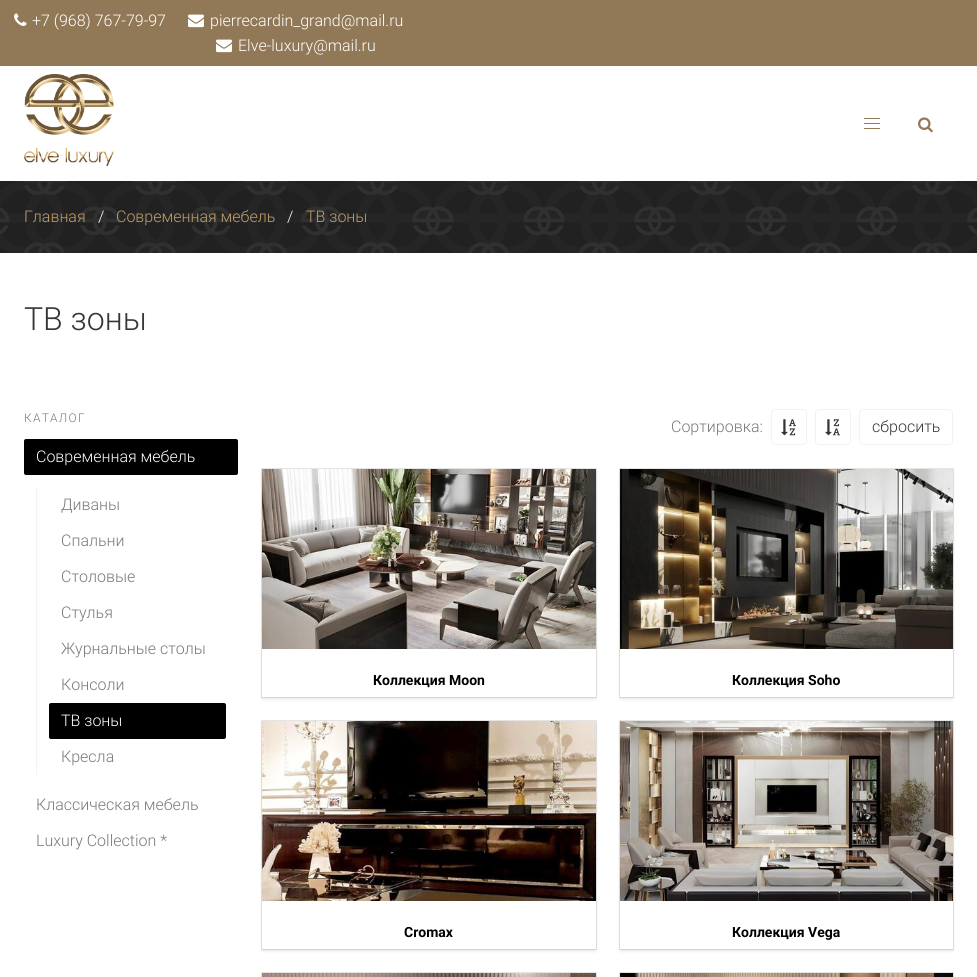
#include <cairo.h>
#include <math.h>
#include <stddef.h>

typedef struct { double x, y; const char *s; } line_t;
typedef struct { double x, y, w, h; unsigned color; } box_t;

static void ink(cairo_t *ctx, unsigned color) {
    cairo_set_source_rgb(ctx, (color >> 16) / 255.0, (color >> 8 & 255) / 255.0, (color & 255) / 255.0);
}

static void write_spaced(cairo_t *ctx, double x, double y, const char *s, double letter, double word) {
    cairo_move_to(ctx, x, y);
    while (*s) {
        char ch[5] = {0};
        int n = 0;
        do ch[n++] = *s++; while ((*s & 0xC0) == 0x80);
        cairo_show_text(ctx, ch);
        cairo_rel_move_to(ctx, letter + word * (*ch == ' '), 0);
    }
}

static void round_path(cairo_t *ctx, double x, double y, double w, double h, double r) {
    cairo_new_sub_path(ctx);
    cairo_arc(ctx, x + w - r, y + h - r, r, 0, M_PI / 2);
    cairo_arc(ctx, x + r, y + h - r, r, M_PI / 2, M_PI);
    cairo_arc(ctx, x + r, y + r, r, M_PI, 1.5 * M_PI);
    cairo_arc(ctx, x + w - r, y + r, r, 1.5 * M_PI, 2 * M_PI);
    cairo_close_path(ctx);
}

static void blur_box(cairo_t *ctx, double x, double y, double w, double h, double r, double blur, double alpha) {
    cairo_push_group_with_content(ctx, CAIRO_CONTENT_ALPHA);
    cairo_set_operator(ctx, CAIRO_OPERATOR_SOURCE);
    for (int i = 15; i >= -15 && fmin(w, h) + blur * i / 3 > 0; i -= 2) {
        double e = blur * i / 6;
        cairo_set_source_rgba(ctx, 0, 0, 0, alpha * erfc((i - 1) / 8.5) / 2);
        round_path(ctx, x - e, y - e, w + 2 * e, h + 2 * e, fmax(0, fmin(r + e + blur * .6, fmin(w, h) / 2 + e)));
        cairo_fill(ctx);
    }
    cairo_pattern_t *soft = cairo_pop_group(ctx);
    cairo_mask(ctx, soft);
    cairo_pattern_destroy(soft);
}

static void paste(cairo_t *ctx, const char *path, double x, double y, double w, double h) {
    cairo_surface_t *image = cairo_image_surface_create_from_png(path);
    cairo_save(ctx);
    cairo_set_source_surface(ctx, image, x, y);
    cairo_rectangle(ctx, x, y, w, h);
    cairo_fill(ctx);
    cairo_restore(ctx);
    cairo_surface_destroy(image);
}

int main(void) {
    cairo_surface_t *surface = cairo_image_surface_create(CAIRO_FORMAT_RGB24, 977, 977);
    cairo_t *ctx = cairo_create(surface);
    cairo_font_options_t *options = cairo_font_options_create();
    cairo_font_options_set_hint_metrics(options, CAIRO_HINT_METRICS_OFF);
    cairo_font_options_set_hint_style(options, CAIRO_HINT_STYLE_NONE);
    cairo_set_font_options(ctx, options);
    cairo_set_miter_limit(ctx, 4);
    ink(ctx, 0xFFFFFF);
    cairo_paint(ctx);
    ink(ctx, 0x917957);
    cairo_rectangle(ctx, 0, 0, 977, 66);
    cairo_fill(ctx);
    paste(ctx, "media/1.png", 14, 13, 13, 13);
    cairo_select_font_face(ctx, "Roboto Light", CAIRO_FONT_SLANT_NORMAL, CAIRO_FONT_WEIGHT_NORMAL);
    cairo_set_font_size(ctx, 16);
    ink(ctx, 0xFFFFFF);
    cairo_move_to(ctx, 32, 26);
    cairo_show_text(ctx, "+7 (968) 767-79-97");
    paste(ctx, "media/2.png", 188, 14, 16, 14);
    cairo_move_to(ctx, 210, 26);
    cairo_show_text(ctx, "pierrecardin_grand@mail.ru");
    paste(ctx, "media/2.png", 216, 39, 16, 14);
    cairo_move_to(ctx, 238, 51);
    cairo_show_text(ctx, "Elve-luxury@mail.ru");
    paste(ctx, "media/3.png", 24, 74, 90, 92);
    {
        static const box_t items[] = {
            {864, 118, 16, 1, 0x917957},
            {864, 123, 16, 1, 0x917957},
            {864, 128, 16, 1, 0x917957},
        };
        for (size_t i = 0; i < sizeof items / sizeof *items; i++) {
            ink(ctx, items[i].color);
            cairo_rectangle(ctx, items[i].x, items[i].y, items[i].w, items[i].h);
            cairo_fill(ctx);
        }
    }
    paste(ctx, "media/4.png", 918, 117, 15, 16);
    paste(ctx, "media/5.png", 0, 181, 977, 72);
    ink(ctx, 0xC19D69);
    cairo_move_to(ctx, 24, 222);
    cairo_show_text(ctx, "Главная");
    ink(ctx, 0xFFFFFF);
    cairo_move_to(ctx, 98, 222);
    cairo_show_text(ctx, "/");
    ink(ctx, 0xC19D69);
    cairo_move_to(ctx, 116, 222);
    cairo_show_text(ctx, "Современная мебель");
    ink(ctx, 0xFFFFFF);
    cairo_move_to(ctx, 287, 222);
    cairo_show_text(ctx, "/");
    ink(ctx, 0xC19D69);
    cairo_move_to(ctx, 306, 222);
    cairo_show_text(ctx, "ТВ зоны");
    cairo_set_font_size(ctx, 32);
    ink(ctx, 0x363636);
    cairo_move_to(ctx, 24, 330);
    cairo_show_text(ctx, "ТВ зоны");
    cairo_set_font_size(ctx, 12);
    ink(ctx, 0x7A7A7A);
    write_spaced(ctx, 24, 422, "КАТАЛОГ", 1.25, 0);
    ink(ctx, 0x000000);
    round_path(ctx, 24, 439, 214, 36, 2);
    cairo_fill(ctx);
    cairo_set_font_size(ctx, 16);
    ink(ctx, 0xFFFFFF);
    cairo_move_to(ctx, 36, 462);
    cairo_show_text(ctx, "Современная мебель");
    ink(ctx, 0xF2F2F2);
    cairo_rectangle(ctx, 36, 487, 1, 288);
    cairo_fill(ctx);
    ink(ctx, 0x7A7A7A);
    {
        static const line_t items[] = {
            {61, 510, "Диваны"},
            {61, 546, "Спальни"},
            {61, 582, "Столовые"},
            {61, 618, "Стулья"},
            {61, 654, "Журнальные столы"},
            {61, 690, "Консоли"},
        };
        for (size_t i = 0; i < sizeof items / sizeof *items; i++) {
            cairo_move_to(ctx, items[i].x, items[i].y);
            cairo_show_text(ctx, items[i].s);
        }
    }
    ink(ctx, 0x000000);
    round_path(ctx, 49, 703, 177, 36, 2);
    cairo_fill(ctx);
    ink(ctx, 0xFFFFFF);
    cairo_move_to(ctx, 61, 726);
    cairo_show_text(ctx, "ТВ зоны");
    ink(ctx, 0x7A7A7A);
    {
        static const line_t items[] = {
            {61, 762, "Кресла"},
            {36, 810, "Классическая мебель"},
            {36, 846, "Luxury Collection *"},
            {671, 432, "Сортировка:"},
        };
        for (size_t i = 0; i < sizeof items / sizeof *items; i++) {
            cairo_move_to(ctx, items[i].x, items[i].y);
            cairo_show_text(ctx, items[i].s);
        }
    }
    round_path(ctx, 771.5, 409.5, 35, 35, 3.5);
    ink(ctx, 0xF2F2F2);
    cairo_set_line_width(ctx, 1);
    cairo_stroke(ctx);
    paste(ctx, "media/6.png", 781, 419, 15, 17);
    round_path(ctx, 815.5, 409.5, 35, 35, 3.5);
    cairo_stroke(ctx);
    paste(ctx, "media/7.png", 825, 419, 15, 17);
    round_path(ctx, 859.5, 409.5, 93, 35, 3.5);
    cairo_stroke(ctx);
    ink(ctx, 0x363636);
    cairo_move_to(ctx, 872, 432);
    cairo_show_text(ctx, "сбросить");
    cairo_rectangle(ctx, 261.5, 468.5, 335, 229);
    ink(ctx, 0xE6E6E6);
    cairo_stroke(ctx);
    cairo_save(ctx);
    cairo_set_fill_rule(ctx, CAIRO_FILL_RULE_EVEN_ODD);
    cairo_new_path(ctx);
    cairo_move_to(ctx, 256, 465);
    cairo_line_to(ctx, 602, 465);
    cairo_line_to(ctx, 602, 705);
    cairo_line_to(ctx, 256, 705);
    cairo_close_path(ctx);
    cairo_move_to(ctx, 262, 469);
    cairo_line_to(ctx, 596, 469);
    cairo_line_to(ctx, 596, 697);
    cairo_line_to(ctx, 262, 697);
    cairo_close_path(ctx);
    cairo_clip(ctx);
    ink(ctx, 0x000000);
    blur_box(ctx, 262, 471, 334, 228, 0, 1.5, 0.1);
    cairo_restore(ctx);
    paste(ctx, "media/8.png", 262, 469, 334, 180);
    cairo_select_font_face(ctx, "Roboto", CAIRO_FONT_SLANT_NORMAL, CAIRO_FONT_WEIGHT_BOLD);
    cairo_set_font_size(ctx, 14);
    ink(ctx, 0x000000);
    cairo_move_to(ctx, 373, 685);
    cairo_show_text(ctx, "Коллекция Moon");
    cairo_rectangle(ctx, 619.5, 468.5, 334, 229);
    ink(ctx, 0xE6E6E6);
    cairo_stroke(ctx);
    cairo_save(ctx);
    cairo_set_fill_rule(ctx, CAIRO_FILL_RULE_EVEN_ODD);
    cairo_new_path(ctx);
    cairo_move_to(ctx, 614, 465);
    cairo_line_to(ctx, 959, 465);
    cairo_line_to(ctx, 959, 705);
    cairo_line_to(ctx, 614, 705);
    cairo_close_path(ctx);
    cairo_move_to(ctx, 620, 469);
    cairo_line_to(ctx, 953, 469);
    cairo_line_to(ctx, 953, 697);
    cairo_line_to(ctx, 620, 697);
    cairo_close_path(ctx);
    cairo_clip(ctx);
    ink(ctx, 0x000000);
    blur_box(ctx, 620, 471, 333, 228, 0, 1.5, 0.1);
    cairo_restore(ctx);
    paste(ctx, "media/9.png", 620, 469, 333, 180);
    ink(ctx, 0x000000);
    cairo_move_to(ctx, 732, 685);
    cairo_show_text(ctx, "Коллекция Soho");
    cairo_rectangle(ctx, 261.5, 720.5, 335, 229);
    ink(ctx, 0xE6E6E6);
    cairo_stroke(ctx);
    cairo_save(ctx);
    cairo_set_fill_rule(ctx, CAIRO_FILL_RULE_EVEN_ODD);
    cairo_new_path(ctx);
    cairo_move_to(ctx, 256, 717);
    cairo_line_to(ctx, 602, 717);
    cairo_line_to(ctx, 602, 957);
    cairo_line_to(ctx, 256, 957);
    cairo_close_path(ctx);
    cairo_move_to(ctx, 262, 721);
    cairo_line_to(ctx, 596, 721);
    cairo_line_to(ctx, 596, 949);
    cairo_line_to(ctx, 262, 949);
    cairo_close_path(ctx);
    cairo_clip(ctx);
    ink(ctx, 0x000000);
    blur_box(ctx, 262, 723, 334, 228, 0, 1.5, 0.1);
    cairo_restore(ctx);
    paste(ctx, "media/10.png", 262, 721, 334, 180);
    ink(ctx, 0x000000);
    cairo_move_to(ctx, 404, 937);
    cairo_show_text(ctx, "Cromax");
    cairo_rectangle(ctx, 619.5, 720.5, 334, 229);
    ink(ctx, 0xE6E6E6);
    cairo_stroke(ctx);
    cairo_save(ctx);
    cairo_set_fill_rule(ctx, CAIRO_FILL_RULE_EVEN_ODD);
    cairo_new_path(ctx);
    cairo_move_to(ctx, 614, 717);
    cairo_line_to(ctx, 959, 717);
    cairo_line_to(ctx, 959, 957);
    cairo_line_to(ctx, 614, 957);
    cairo_close_path(ctx);
    cairo_move_to(ctx, 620, 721);
    cairo_line_to(ctx, 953, 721);
    cairo_line_to(ctx, 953, 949);
    cairo_line_to(ctx, 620, 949);
    cairo_close_path(ctx);
    cairo_clip(ctx);
    ink(ctx, 0x000000);
    blur_box(ctx, 620, 723, 333, 228, 0, 1.5, 0.1);
    cairo_restore(ctx);
    paste(ctx, "media/11.png", 620, 721, 333, 180);
    ink(ctx, 0x000000);
    cairo_move_to(ctx, 732, 937);
    cairo_show_text(ctx, "Коллекция Vega");
    cairo_rectangle(ctx, 261.5, 972.5, 335, 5);
    ink(ctx, 0xE6E6E6);
    cairo_stroke(ctx);
    ink(ctx, 0x000000);
    blur_box(ctx, 262, 975, 334, 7, 0, 1.5, 0.1);
    paste(ctx, "media/12.png", 262, 973, 334, 4);
    cairo_rectangle(ctx, 619.5, 972.5, 334, 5);
    ink(ctx, 0xE6E6E6);
    cairo_stroke(ctx);
    ink(ctx, 0x000000);
    blur_box(ctx, 620, 975, 333, 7, 0, 1.5, 0.1);
    paste(ctx, "media/13.png", 620, 973, 333, 4);
    cairo_surface_write_to_png(surface, "image.png");
    cairo_font_options_destroy(options);
    cairo_destroy(ctx);
    cairo_surface_destroy(surface);
    return 0;
}
